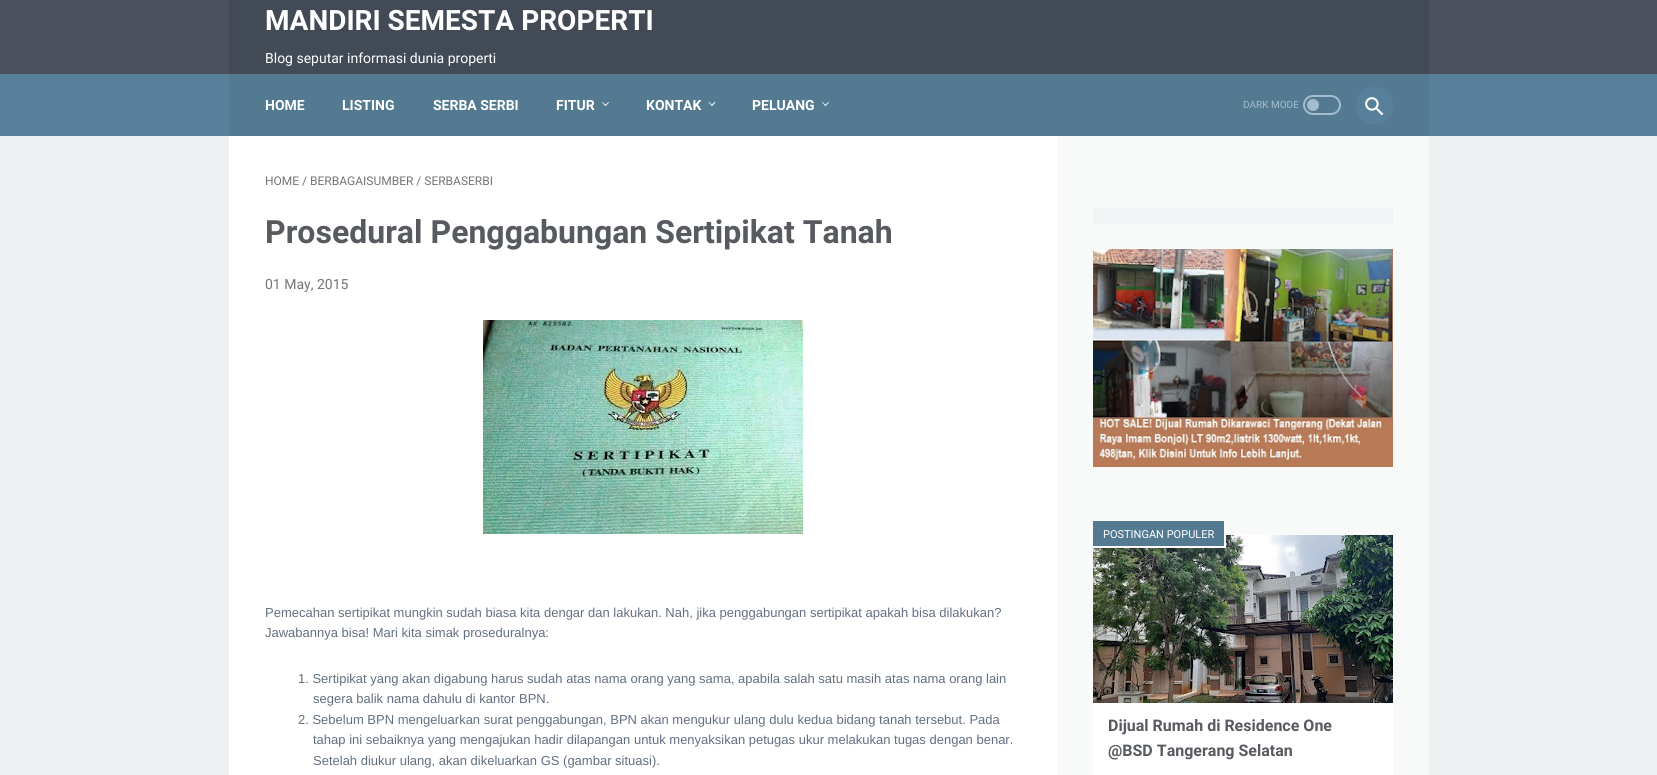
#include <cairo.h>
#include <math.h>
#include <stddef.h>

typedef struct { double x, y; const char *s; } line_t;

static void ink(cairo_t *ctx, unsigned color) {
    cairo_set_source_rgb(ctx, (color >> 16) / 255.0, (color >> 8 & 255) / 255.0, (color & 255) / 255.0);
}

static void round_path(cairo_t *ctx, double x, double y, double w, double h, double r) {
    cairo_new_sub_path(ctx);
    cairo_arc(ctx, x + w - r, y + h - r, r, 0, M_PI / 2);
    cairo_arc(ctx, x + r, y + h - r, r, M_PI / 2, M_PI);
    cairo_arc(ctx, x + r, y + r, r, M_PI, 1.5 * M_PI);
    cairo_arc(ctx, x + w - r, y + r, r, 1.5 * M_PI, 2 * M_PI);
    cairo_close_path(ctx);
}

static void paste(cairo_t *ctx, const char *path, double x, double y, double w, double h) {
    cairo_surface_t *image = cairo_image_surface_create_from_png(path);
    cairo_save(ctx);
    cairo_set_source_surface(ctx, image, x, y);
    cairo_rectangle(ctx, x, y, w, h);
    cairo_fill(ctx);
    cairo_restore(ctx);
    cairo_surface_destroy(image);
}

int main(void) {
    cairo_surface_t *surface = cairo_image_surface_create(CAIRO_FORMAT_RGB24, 1657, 775);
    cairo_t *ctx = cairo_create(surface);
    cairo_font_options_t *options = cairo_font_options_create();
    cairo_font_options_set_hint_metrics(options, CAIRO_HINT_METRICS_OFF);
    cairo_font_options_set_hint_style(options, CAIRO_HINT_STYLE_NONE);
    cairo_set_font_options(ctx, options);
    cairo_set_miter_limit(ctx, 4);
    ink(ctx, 0xEDF1F2);
    cairo_paint(ctx);
    ink(ctx, 0x4B525D);
    cairo_rectangle(ctx, 0, 0, 1657, 74);
    cairo_fill(ctx);
    ink(ctx, 0x424A56);
    cairo_rectangle(ctx, 229, 0, 1200, 74);
    cairo_fill(ctx);
    cairo_select_font_face(ctx, "Roboto", CAIRO_FONT_SLANT_NORMAL, CAIRO_FONT_WEIGHT_BOLD);
    cairo_set_font_size(ctx, 28);
    ink(ctx, 0xFFFFFF);
    cairo_move_to(ctx, 265, 30);
    cairo_show_text(ctx, "MANDIRI SEMESTA PROPERTI");
    cairo_select_font_face(ctx, "Roboto", CAIRO_FONT_SLANT_NORMAL, CAIRO_FONT_WEIGHT_NORMAL);
    cairo_set_font_size(ctx, 14);
    cairo_move_to(ctx, 265, 63);
    cairo_show_text(ctx, "Blog seputar informasi dunia properti");
    ink(ctx, 0x57809A);
    cairo_rectangle(ctx, 0, 74, 1657, 62);
    cairo_fill(ctx);
    ink(ctx, 0x547A92);
    cairo_rectangle(ctx, 229, 74, 1200, 62);
    cairo_fill(ctx);
    cairo_select_font_face(ctx, "Roboto", CAIRO_FONT_SLANT_NORMAL, CAIRO_FONT_WEIGHT_BOLD);
    ink(ctx, 0xFFFFFF);
    {
        static const line_t items[] = {
            {265, 110, "HOME"},
            {342, 110, "LISTING"},
            {433, 110, "SERBA SERBI"},
            {556, 110, "FITUR"},
        };
        for (size_t i = 0; i < sizeof items / sizeof *items; i++) {
            cairo_move_to(ctx, items[i].x, items[i].y);
            cairo_show_text(ctx, items[i].s);
        }
    }
    cairo_new_path(ctx);
    cairo_move_to(ctx, 604.5, 105.5);
    cairo_line_to(ctx, 608.5, 102);
    cairo_line_to(ctx, 609, 102.5);
    cairo_line_to(ctx, 605.5, 106);
    cairo_close_path(ctx);
    cairo_fill(ctx);
    cairo_new_path(ctx);
    cairo_move_to(ctx, 602, 102.5);
    cairo_line_to(ctx, 602.5, 102);
    cairo_line_to(ctx, 606, 105.5);
    cairo_line_to(ctx, 605.5, 106);
    cairo_close_path(ctx);
    cairo_fill(ctx);
    cairo_move_to(ctx, 646, 110);
    cairo_show_text(ctx, "KONTAK");
    cairo_new_path(ctx);
    cairo_move_to(ctx, 711, 105.5);
    cairo_line_to(ctx, 714.5, 102);
    cairo_line_to(ctx, 715.5, 102.5);
    cairo_line_to(ctx, 712, 106);
    cairo_close_path(ctx);
    cairo_fill(ctx);
    cairo_new_path(ctx);
    cairo_move_to(ctx, 708.5, 102.5);
    cairo_line_to(ctx, 709, 102);
    cairo_line_to(ctx, 712.5, 105.5);
    cairo_line_to(ctx, 712, 106);
    cairo_close_path(ctx);
    cairo_fill(ctx);
    cairo_move_to(ctx, 752, 110);
    cairo_show_text(ctx, "PELUANG");
    cairo_new_path(ctx);
    cairo_move_to(ctx, 824.5, 105.5);
    cairo_line_to(ctx, 828.5, 102);
    cairo_line_to(ctx, 829, 102.5);
    cairo_line_to(ctx, 825.5, 106);
    cairo_close_path(ctx);
    cairo_fill(ctx);
    cairo_new_path(ctx);
    cairo_move_to(ctx, 822, 102.5);
    cairo_line_to(ctx, 822.5, 102);
    cairo_line_to(ctx, 826, 105.5);
    cairo_line_to(ctx, 825.5, 106);
    cairo_close_path(ctx);
    cairo_fill(ctx);
    cairo_select_font_face(ctx, "Roboto", CAIRO_FONT_SLANT_NORMAL, CAIRO_FONT_WEIGHT_NORMAL);
    cairo_set_font_size(ctx, 10);
    ink(ctx, 0xA3BDCE);
    cairo_move_to(ctx, 1243, 108);
    cairo_show_text(ctx, "DARK MODE");
    round_path(ctx, 1304, 96, 36, 18, 9);
    cairo_stroke(ctx);
    cairo_arc(ctx, 1313, 105, 6, 0, 2 * M_PI);
    cairo_fill(ctx);
    ink(ctx, 0x57809A);
    round_path(ctx, 1356, 87, 37, 37, 18);
    cairo_fill(ctx);
    paste(ctx, "media/1.png", 1365, 97, 19, 19);
    ink(ctx, 0xFFFFFF);
    cairo_rectangle(ctx, 229, 136, 828, 639);
    cairo_fill(ctx);
    cairo_set_font_size(ctx, 12);
    ink(ctx, 0x757575);
    cairo_move_to(ctx, 265, 185);
    cairo_show_text(ctx, "HOME / BERBAGAISUMBER / SERBASERBI");
    cairo_select_font_face(ctx, "Roboto", CAIRO_FONT_SLANT_NORMAL, CAIRO_FONT_WEIGHT_BOLD);
    cairo_set_font_size(ctx, 32);
    ink(ctx, 0x575A5F);
    cairo_move_to(ctx, 265, 243);
    cairo_show_text(ctx, "Prosedural Penggabungan Sertipikat Tanah");
    cairo_select_font_face(ctx, "Roboto", CAIRO_FONT_SLANT_NORMAL, CAIRO_FONT_WEIGHT_NORMAL);
    cairo_set_font_size(ctx, 14);
    ink(ctx, 0x757575);
    cairo_move_to(ctx, 265, 289);
    cairo_show_text(ctx, "01 May, 2015");
    paste(ctx, "media/2.png", 483, 320, 320, 214);
    cairo_select_font_face(ctx, "Liberation Sans", CAIRO_FONT_SLANT_NORMAL, CAIRO_FONT_WEIGHT_NORMAL);
    cairo_set_font_size(ctx, 13);
    ink(ctx, 0x636F81);
    {
        static const line_t items[] = {
            {265, 617, "Pemecahan sertipikat mungkin sudah biasa kita dengar dan lakukan. Nah, jika penggabungan sertipikat apakah bisa dilakukan?"},
            {265, 637, "Jawabannya bisa! Mari kita simak proseduralnya:"},
            {298, 683, "1. Sertipikat yang akan digabung harus sudah atas nama orang yang sama, apabila salah satu masih atas nama orang lain"},
            {313, 703, "segera balik nama dahulu di kantor BPN."},
            {298, 724, "2. Sebelum BPN mengeluarkan surat penggabungan, BPN akan mengukur ulang dulu kedua bidang tanah tersebut. Pada"},
            {313, 744, "tahap ini sebaiknya yang mengajukan hadir dilapangan untuk menyaksikan petugas ukur melakukan tugas dengan benar."},
            {313, 765, "Setelah diukur ulang, akan dikeluarkan GS (gambar situasi)."},
        };
        for (size_t i = 0; i < sizeof items / sizeof *items; i++) {
            cairo_move_to(ctx, items[i].x, items[i].y);
            cairo_show_text(ctx, items[i].s);
        }
    }
    ink(ctx, 0xF8FAFA);
    cairo_rectangle(ctx, 1057, 136, 372, 639);
    cairo_fill(ctx);
    ink(ctx, 0xF0F4F4);
    cairo_rectangle(ctx, 1093, 208, 300, 16);
    cairo_fill(ctx);
    paste(ctx, "media/3.png", 1093, 249, 300, 218);
    paste(ctx, "media/4.png", 1093, 535, 300, 168);
    cairo_rectangle(ctx, 1092, 520, 133, 27);
    ink(ctx, 0xF8FAFA);
    cairo_stroke(ctx);
    ink(ctx, 0x547A92);
    cairo_rectangle(ctx, 1093, 521, 131, 25);
    cairo_fill(ctx);
    cairo_select_font_face(ctx, "Roboto", CAIRO_FONT_SLANT_NORMAL, CAIRO_FONT_WEIGHT_NORMAL);
    cairo_set_font_size(ctx, 11);
    ink(ctx, 0xFFFFFF);
    cairo_move_to(ctx, 1103, 538);
    cairo_show_text(ctx, "POSTINGAN POPULER");
    cairo_rectangle(ctx, 1093, 703, 300, 72);
    cairo_fill(ctx);
    cairo_select_font_face(ctx, "Roboto", CAIRO_FONT_SLANT_NORMAL, CAIRO_FONT_WEIGHT_BOLD);
    cairo_set_font_size(ctx, 16);
    ink(ctx, 0x575A5F);
    cairo_move_to(ctx, 1108, 731);
    cairo_show_text(ctx, "Dijual Rumah di Residence One");
    cairo_move_to(ctx, 1108, 756);
    cairo_show_text(ctx, "@BSD Tangerang Selatan");
    cairo_surface_write_to_png(surface, "image.png");
    cairo_font_options_destroy(options);
    cairo_destroy(ctx);
    cairo_surface_destroy(surface);
    return 0;
}
